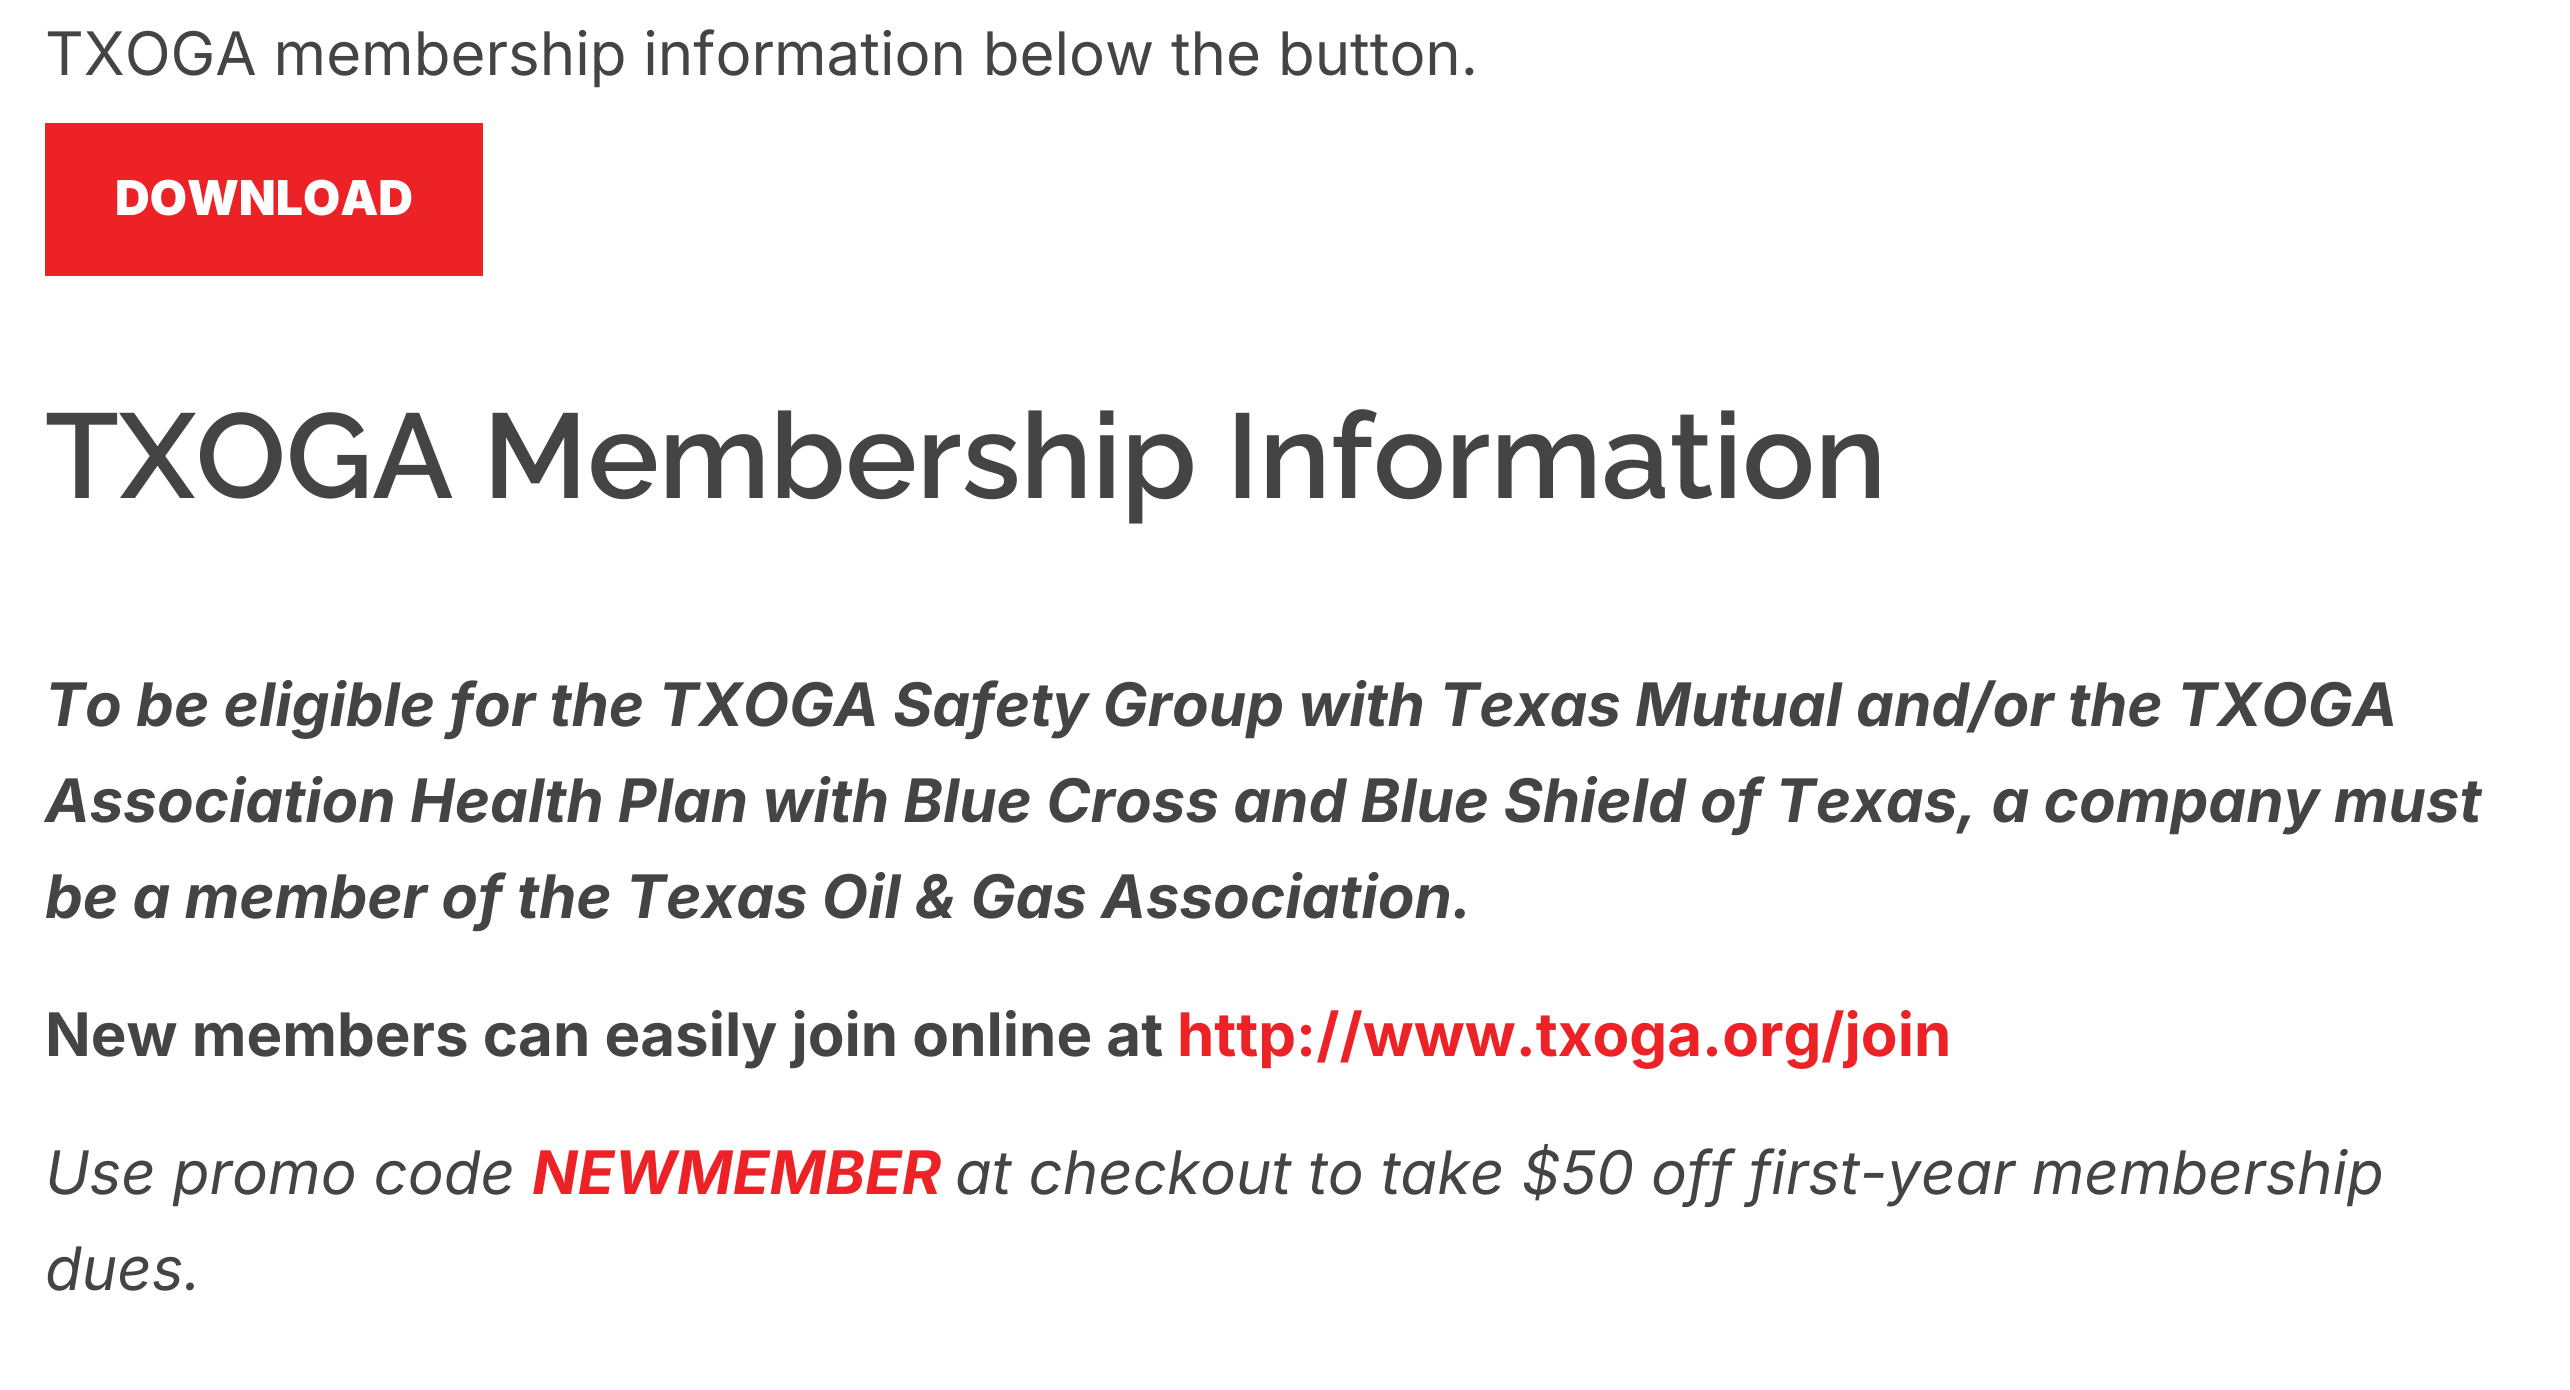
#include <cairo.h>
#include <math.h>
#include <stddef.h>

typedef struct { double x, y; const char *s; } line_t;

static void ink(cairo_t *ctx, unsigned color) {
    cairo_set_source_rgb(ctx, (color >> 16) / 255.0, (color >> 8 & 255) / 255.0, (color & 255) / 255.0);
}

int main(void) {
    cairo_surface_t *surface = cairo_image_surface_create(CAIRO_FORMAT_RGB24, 2570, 1390);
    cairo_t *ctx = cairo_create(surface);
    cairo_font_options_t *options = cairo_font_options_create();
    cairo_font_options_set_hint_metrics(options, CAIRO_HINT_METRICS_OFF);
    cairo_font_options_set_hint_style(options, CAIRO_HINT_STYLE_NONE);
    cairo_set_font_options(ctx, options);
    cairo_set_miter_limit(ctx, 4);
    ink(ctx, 0xFFFFFF);
    cairo_paint(ctx);
    cairo_select_font_face(ctx, "Inter", CAIRO_FONT_SLANT_NORMAL, CAIRO_FONT_WEIGHT_NORMAL);
    cairo_set_font_size(ctx, 60);
    ink(ctx, 0x444444);
    cairo_move_to(ctx, 45, 75);
    cairo_show_text(ctx, "TXOGA membership information below the button.");
    ink(ctx, 0xEC2227);
    cairo_rectangle(ctx, 45, 123, 438, 153);
    cairo_fill(ctx);
    cairo_select_font_face(ctx, "Inter Black", CAIRO_FONT_SLANT_NORMAL, CAIRO_FONT_WEIGHT_NORMAL);
    cairo_set_font_size(ctx, 48);
    ink(ctx, 0xFFFFFF);
    cairo_move_to(ctx, 115, 215);
    cairo_show_text(ctx, "DOWNLOAD");
    cairo_select_font_face(ctx, "Raleway SemiBold", CAIRO_FONT_SLANT_NORMAL, CAIRO_FONT_WEIGHT_NORMAL);
    cairo_set_font_size(ctx, 120);
    ink(ctx, 0x444444);
    cairo_move_to(ctx, 45, 498);
    cairo_show_text(ctx, "TXOGA Membership Information");
    cairo_select_font_face(ctx, "Inter", CAIRO_FONT_SLANT_ITALIC, CAIRO_FONT_WEIGHT_BOLD);
    cairo_set_font_size(ctx, 60);
    {
        static const line_t items[] = {
            {45, 726, "To be eligible for the TXOGA Safety Group with Texas Mutual and/or the TXOGA"},
            {45, 822, "Association Health Plan with Blue Cross and Blue Shield of Texas, a company must"},
            {45, 918, "be a member of the Texas Oil & Gas Association."},
        };
        for (size_t i = 0; i < sizeof items / sizeof *items; i++) {
            cairo_move_to(ctx, items[i].x, items[i].y);
            cairo_show_text(ctx, items[i].s);
        }
    }
    cairo_select_font_face(ctx, "Inter", CAIRO_FONT_SLANT_NORMAL, CAIRO_FONT_WEIGHT_BOLD);
    cairo_move_to(ctx, 45, 1056);
    cairo_show_text(ctx, "New members can easily join online at");
    ink(ctx, 0xEC2227);
    cairo_move_to(ctx, 1177, 1056);
    cairo_show_text(ctx, "http://www.txoga.org/join");
    cairo_select_font_face(ctx, "Inter", CAIRO_FONT_SLANT_ITALIC, CAIRO_FONT_WEIGHT_NORMAL);
    ink(ctx, 0x444444);
    cairo_move_to(ctx, 45, 1194);
    cairo_show_text(ctx, "Use promo code");
    cairo_select_font_face(ctx, "Inter", CAIRO_FONT_SLANT_ITALIC, CAIRO_FONT_WEIGHT_BOLD);
    ink(ctx, 0xEC2227);
    cairo_move_to(ctx, 532, 1194);
    cairo_show_text(ctx, "NEWMEMBER");
    cairo_select_font_face(ctx, "Inter", CAIRO_FONT_SLANT_ITALIC, CAIRO_FONT_WEIGHT_NORMAL);
    ink(ctx, 0x444444);
    cairo_move_to(ctx, 955, 1194);
    cairo_show_text(ctx, "at checkout to take $50 off first-year membership");
    cairo_move_to(ctx, 45, 1290);
    cairo_show_text(ctx, "dues.");
    cairo_surface_write_to_png(surface, "image.png");
    cairo_font_options_destroy(options);
    cairo_destroy(ctx);
    cairo_surface_destroy(surface);
    return 0;
}
